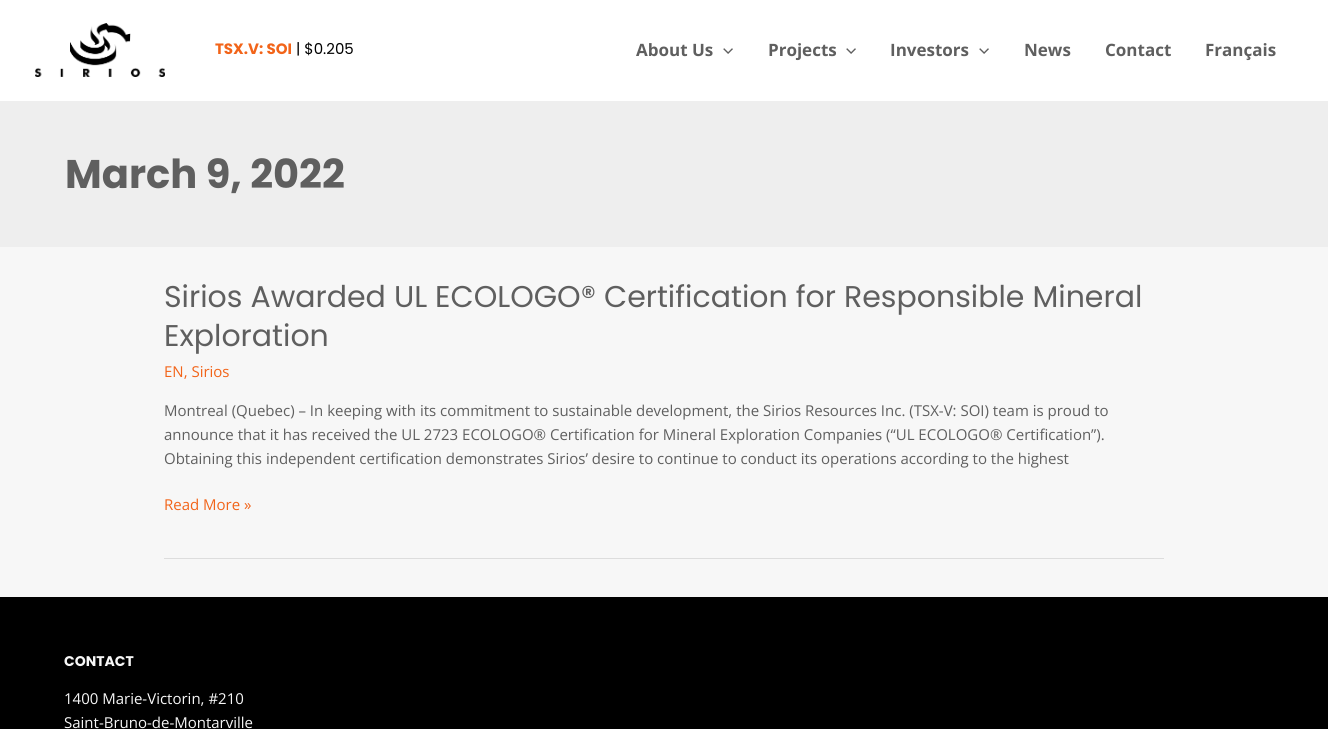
#include <cairo.h>
#include <math.h>
#include <stddef.h>

typedef struct { double x, y; const char *s; } line_t;

static void ink(cairo_t *ctx, unsigned color) {
    cairo_set_source_rgb(ctx, (color >> 16) / 255.0, (color >> 8 & 255) / 255.0, (color & 255) / 255.0);
}

static void paste(cairo_t *ctx, const char *path, double x, double y, double w, double h) {
    cairo_surface_t *image = cairo_image_surface_create_from_png(path);
    cairo_save(ctx);
    cairo_set_source_surface(ctx, image, x, y);
    cairo_rectangle(ctx, x, y, w, h);
    cairo_fill(ctx);
    cairo_restore(ctx);
    cairo_surface_destroy(image);
}

int main(void) {
    cairo_surface_t *surface = cairo_image_surface_create(CAIRO_FORMAT_RGB24, 1328, 729);
    cairo_t *ctx = cairo_create(surface);
    cairo_font_options_t *options = cairo_font_options_create();
    cairo_font_options_set_hint_metrics(options, CAIRO_HINT_METRICS_OFF);
    cairo_font_options_set_hint_style(options, CAIRO_HINT_STYLE_NONE);
    cairo_set_font_options(ctx, options);
    cairo_set_miter_limit(ctx, 4);
    ink(ctx, 0xF7F7F7);
    cairo_paint(ctx);
    ink(ctx, 0xFFFFFF);
    cairo_rectangle(ctx, 0, 0, 1328, 101);
    cairo_fill(ctx);
    paste(ctx, "media/1.png", 35, 23, 130, 54);
    cairo_select_font_face(ctx, "Poppins", CAIRO_FONT_SLANT_NORMAL, CAIRO_FONT_WEIGHT_BOLD);
    cairo_set_font_size(ctx, 15);
    ink(ctx, 0xF26419);
    cairo_move_to(ctx, 215, 54);
    cairo_show_text(ctx, "TSX.V: SOI");
    cairo_select_font_face(ctx, "Poppins", CAIRO_FONT_SLANT_NORMAL, CAIRO_FONT_WEIGHT_NORMAL);
    ink(ctx, 0x000000);
    cairo_move_to(ctx, 296, 54);
    cairo_show_text(ctx, "| $0.205");
    cairo_select_font_face(ctx, "Open Sans", CAIRO_FONT_SLANT_NORMAL, CAIRO_FONT_WEIGHT_BOLD);
    cairo_set_font_size(ctx, 17);
    ink(ctx, 0x5F5F5F);
    cairo_move_to(ctx, 636, 56);
    cairo_show_text(ctx, "About Us");
    paste(ctx, "media/2.png", 723, 48, 10, 6);
    cairo_move_to(ctx, 768, 56);
    cairo_show_text(ctx, "Projects");
    paste(ctx, "media/2.png", 846, 48, 10, 6);
    cairo_move_to(ctx, 890, 56);
    cairo_show_text(ctx, "Investors");
    paste(ctx, "media/2.png", 979, 48, 10, 6);
    {
        static const line_t items[] = {
            {1024, 56, "News"},
            {1105, 56, "Contact"},
            {1205, 56, "Français"},
        };
        for (size_t i = 0; i < sizeof items / sizeof *items; i++) {
            cairo_move_to(ctx, items[i].x, items[i].y);
            cairo_show_text(ctx, items[i].s);
        }
    }
    ink(ctx, 0xEEEEEE);
    cairo_rectangle(ctx, 0, 101, 1328, 146);
    cairo_fill(ctx);
    cairo_select_font_face(ctx, "Poppins", CAIRO_FONT_SLANT_NORMAL, CAIRO_FONT_WEIGHT_BOLD);
    cairo_set_font_size(ctx, 40);
    ink(ctx, 0x5F5F5F);
    cairo_move_to(ctx, 65, 188);
    cairo_show_text(ctx, "March 9, 2022");
    ink(ctx, 0xDDDDDD);
    cairo_rectangle(ctx, 164, 558, 1000, 1);
    cairo_fill(ctx);
    cairo_select_font_face(ctx, "Poppins", CAIRO_FONT_SLANT_NORMAL, CAIRO_FONT_WEIGHT_NORMAL);
    cairo_set_font_size(ctx, 30);
    ink(ctx, 0x5F5F5F);
    cairo_move_to(ctx, 164, 307);
    cairo_show_text(ctx, "Sirios Awarded UL ECOLOGO® Certification for Responsible Mineral");
    cairo_move_to(ctx, 164, 346);
    cairo_show_text(ctx, "Exploration");
    cairo_select_font_face(ctx, "Open Sans", CAIRO_FONT_SLANT_NORMAL, CAIRO_FONT_WEIGHT_NORMAL);
    cairo_set_font_size(ctx, 15);
    ink(ctx, 0xF26419);
    cairo_move_to(ctx, 164, 377);
    cairo_show_text(ctx, "EN, Sirios");
    ink(ctx, 0x5F5F5F);
    {
        static const line_t items[] = {
            {164, 416, "Montreal (Quebec) – In keeping with its commitment to sustainable development, the Sirios Resources Inc. (TSX-V: SOI) team is proud to"},
            {164, 440, "announce that it has received the UL 2723 ECOLOGO® Certification for Mineral Exploration Companies (“UL ECOLOGO® Certification”)."},
            {164, 464, "Obtaining this independent certification demonstrates Sirios’ desire to continue to conduct its operations according to the highest"},
        };
        for (size_t i = 0; i < sizeof items / sizeof *items; i++) {
            cairo_move_to(ctx, items[i].x, items[i].y);
            cairo_show_text(ctx, items[i].s);
        }
    }
    ink(ctx, 0xF26419);
    cairo_move_to(ctx, 164, 510);
    cairo_show_text(ctx, "Read More »");
    ink(ctx, 0x000000);
    cairo_rectangle(ctx, 0, 597, 1328, 132);
    cairo_fill(ctx);
    cairo_select_font_face(ctx, "Poppins", CAIRO_FONT_SLANT_NORMAL, CAIRO_FONT_WEIGHT_BOLD);
    cairo_set_font_size(ctx, 14);
    ink(ctx, 0xF7F7F7);
    cairo_move_to(ctx, 64, 666);
    cairo_show_text(ctx, "CONTACT");
    cairo_select_font_face(ctx, "Open Sans", CAIRO_FONT_SLANT_NORMAL, CAIRO_FONT_WEIGHT_NORMAL);
    cairo_set_font_size(ctx, 15);
    cairo_move_to(ctx, 64, 704);
    cairo_show_text(ctx, "1400 Marie-Victorin, #210");
    cairo_move_to(ctx, 64, 728);
    cairo_show_text(ctx, "Saint-Bruno-de-Montarville");
    cairo_surface_write_to_png(surface, "image.png");
    cairo_font_options_destroy(options);
    cairo_destroy(ctx);
    cairo_surface_destroy(surface);
    return 0;
}
